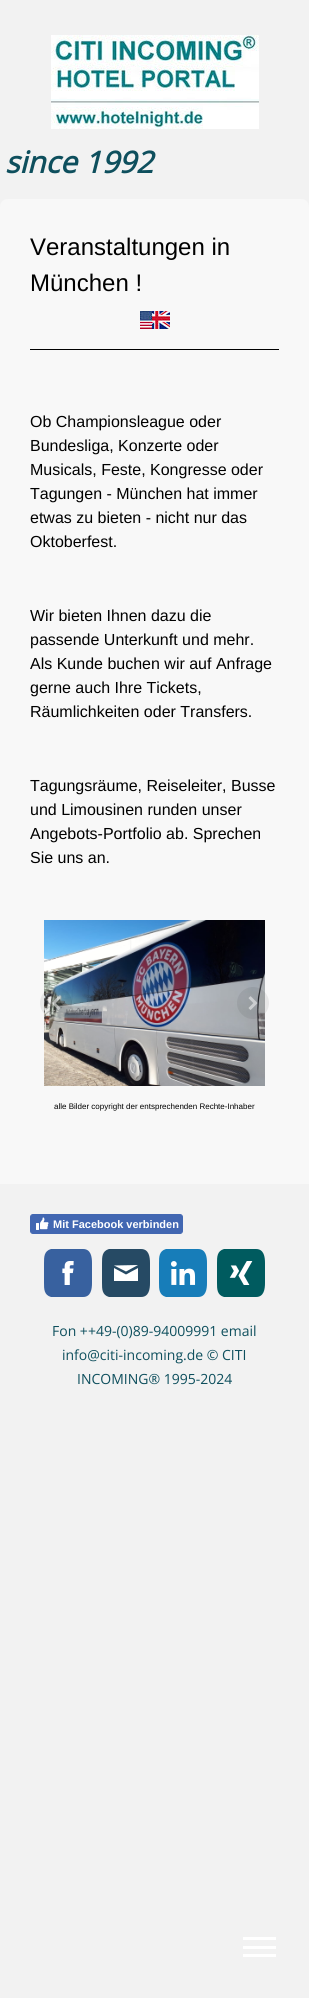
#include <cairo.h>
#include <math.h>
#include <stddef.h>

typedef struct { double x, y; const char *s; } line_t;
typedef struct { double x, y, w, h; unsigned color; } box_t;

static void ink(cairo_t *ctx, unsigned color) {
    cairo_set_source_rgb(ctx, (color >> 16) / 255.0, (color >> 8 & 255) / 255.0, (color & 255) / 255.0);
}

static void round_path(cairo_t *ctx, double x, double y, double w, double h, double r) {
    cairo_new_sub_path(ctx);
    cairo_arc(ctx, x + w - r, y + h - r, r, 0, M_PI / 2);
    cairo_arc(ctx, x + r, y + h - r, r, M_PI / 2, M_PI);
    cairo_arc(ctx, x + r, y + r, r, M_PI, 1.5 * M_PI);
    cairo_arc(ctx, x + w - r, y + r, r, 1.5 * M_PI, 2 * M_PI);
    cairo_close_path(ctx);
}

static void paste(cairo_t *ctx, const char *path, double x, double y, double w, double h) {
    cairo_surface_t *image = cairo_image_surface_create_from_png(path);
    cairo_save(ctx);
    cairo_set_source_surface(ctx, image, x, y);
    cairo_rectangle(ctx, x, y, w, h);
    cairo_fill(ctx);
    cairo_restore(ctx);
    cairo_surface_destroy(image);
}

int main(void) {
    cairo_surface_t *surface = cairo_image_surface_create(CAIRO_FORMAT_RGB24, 309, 1998);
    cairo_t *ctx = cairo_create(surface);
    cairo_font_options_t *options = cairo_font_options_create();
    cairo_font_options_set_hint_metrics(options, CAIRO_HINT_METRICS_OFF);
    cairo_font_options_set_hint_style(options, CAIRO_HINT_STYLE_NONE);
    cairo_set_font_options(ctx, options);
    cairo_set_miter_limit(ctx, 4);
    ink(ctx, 0xF2F2F2);
    cairo_paint(ctx);
    paste(ctx, "media/1.png", 51, 35, 208, 94);
    cairo_select_font_face(ctx, "Open Sans", CAIRO_FONT_SLANT_ITALIC, CAIRO_FONT_WEIGHT_BOLD);
    cairo_set_font_size(ctx, 30);
    ink(ctx, 0x0E4F5D);
    cairo_move_to(ctx, 5, 173);
    cairo_show_text(ctx, "since 1992");
    ink(ctx, 0xF8F8F8);
    cairo_new_path(ctx);
    cairo_move_to(ctx, 8, 199);
    cairo_line_to(ctx, 301, 199);
    cairo_curve_to(ctx, 305.5, 199, 309, 202.5, 309, 207);
    cairo_line_to(ctx, 309, 1184);
    cairo_line_to(ctx, 0, 1184);
    cairo_line_to(ctx, 0, 207);
    cairo_curve_to(ctx, 0, 202.5, 3.5, 199, 8, 199);
    cairo_close_path(ctx);
    cairo_fill(ctx);
    cairo_select_font_face(ctx, "Liberation Sans", CAIRO_FONT_SLANT_NORMAL, CAIRO_FONT_WEIGHT_NORMAL);
    cairo_set_font_size(ctx, 24);
    ink(ctx, 0x000000);
    cairo_move_to(ctx, 30, 255);
    cairo_show_text(ctx, "Veranstaltungen in");
    cairo_move_to(ctx, 30, 291);
    cairo_show_text(ctx, "München !");
    paste(ctx, "media/2.png", 140, 311, 30, 18);
    cairo_rectangle(ctx, 30, 349, 249, 1);
    cairo_fill(ctx);
    cairo_set_font_size(ctx, 16);
    {
        static const line_t items[] = {
            {30, 427, "Ob Championsleague oder"},
            {30, 451, "Bundesliga, Konzerte oder"},
            {30, 475, "Musicals, Feste, Kongresse oder"},
            {30, 499, "Tagungen - München hat immer"},
            {30, 523, "etwas zu bieten - nicht nur das"},
            {30, 547, "Oktoberfest."},
            {30, 621, "Wir bieten Ihnen dazu die"},
            {30, 645, "passende Unterkunft und mehr."},
            {30, 669, "Als Kunde buchen wir auf Anfrage"},
            {30, 693, "gerne auch Ihre Tickets,"},
            {30, 717, "Räumlichkeiten oder Transfers."},
            {30, 791, "Tagungsräume, Reiseleiter, Busse"},
            {30, 815, "und Limousinen runden unser"},
            {30, 839, "Angebots-Portfolio ab. Sprechen"},
            {30, 863, "Sie uns an."},
        };
        for (size_t i = 0; i < sizeof items / sizeof *items; i++) {
            cairo_move_to(ctx, items[i].x, items[i].y);
            cairo_show_text(ctx, items[i].s);
        }
    }
    paste(ctx, "media/3.png", 44, 920, 221, 166);
    cairo_set_source_rgba(ctx, 0, 0, 0, 0.07);
    cairo_arc(ctx, 56, 1003, 16, 0, 2 * M_PI);
    cairo_fill(ctx);
    paste(ctx, "media/4.png", 51, 996, 10, 14);
    cairo_arc(ctx, 253, 1003, 16, 0, 2 * M_PI);
    cairo_fill(ctx);
    paste(ctx, "media/5.png", 248, 996, 10, 14);
    cairo_set_font_size(ctx, 8);
    ink(ctx, 0x000000);
    cairo_move_to(ctx, 54, 1109);
    cairo_show_text(ctx, "alle Bilder copyright der entsprechenden Rechte-Inhaber");
    ink(ctx, 0x4267B2);
    round_path(ctx, 30.5, 1214.5, 152, 19, 2.5);
    cairo_fill_preserve(ctx);
    cairo_set_line_width(ctx, 1);
    cairo_stroke(ctx);
    paste(ctx, "media/6.png", 36, 1217, 13, 13);
    cairo_select_font_face(ctx, "Liberation Sans", CAIRO_FONT_SLANT_NORMAL, CAIRO_FONT_WEIGHT_BOLD);
    cairo_set_font_size(ctx, 11);
    ink(ctx, 0xFFFFFF);
    cairo_move_to(ctx, 53, 1228);
    cairo_show_text(ctx, "Mit Facebook verbinden");
    ink(ctx, 0x38619F);
    cairo_new_path(ctx);
    cairo_move_to(ctx, 83, 1297);
    cairo_line_to(ctx, 51, 1297);
    cairo_curve_to(ctx, 44, 1295, 44, 1289, 44, 1283);
    cairo_line_to(ctx, 44, 1263);
    cairo_curve_to(ctx, 44, 1257, 44, 1251, 51, 1249);
    cairo_line_to(ctx, 83, 1249);
    cairo_curve_to(ctx, 91, 1249, 92, 1257, 92, 1263);
    cairo_line_to(ctx, 92, 1283);
    cairo_curve_to(ctx, 92, 1289, 91, 1297, 83, 1297);
    cairo_close_path(ctx);
    cairo_fill(ctx);
    paste(ctx, "media/7.png", 62, 1261, 12, 24);
    ink(ctx, 0x264A64);
    cairo_new_path(ctx);
    cairo_move_to(ctx, 141, 1297);
    cairo_line_to(ctx, 109, 1297);
    cairo_curve_to(ctx, 102, 1295, 102, 1289, 102, 1283);
    cairo_line_to(ctx, 102, 1263);
    cairo_curve_to(ctx, 102, 1257, 102, 1251, 109, 1249);
    cairo_line_to(ctx, 141, 1249);
    cairo_curve_to(ctx, 149, 1249, 150, 1257, 150, 1263);
    cairo_line_to(ctx, 150, 1283);
    cairo_curve_to(ctx, 150, 1289, 149, 1297, 141, 1297);
    cairo_close_path(ctx);
    cairo_fill(ctx);
    ink(ctx, 0xFFFFFF);
    cairo_new_path(ctx);
    cairo_move_to(ctx, 138, 1281);
    cairo_line_to(ctx, 114, 1281);
    cairo_line_to(ctx, 114, 1268);
    cairo_line_to(ctx, 126, 1274.5);
    cairo_line_to(ctx, 138, 1268);
    cairo_close_path(ctx);
    cairo_move_to(ctx, 138, 1265);
    cairo_line_to(ctx, 114, 1265.5);
    cairo_line_to(ctx, 126, 1271.5);
    cairo_close_path(ctx);
    cairo_fill(ctx);
    ink(ctx, 0x177DB9);
    cairo_new_path(ctx);
    cairo_move_to(ctx, 198, 1297);
    cairo_line_to(ctx, 166, 1297);
    cairo_curve_to(ctx, 159, 1295, 159, 1289, 159, 1283);
    cairo_line_to(ctx, 159, 1263);
    cairo_curve_to(ctx, 159, 1257, 159, 1251, 166, 1249);
    cairo_line_to(ctx, 198, 1249);
    cairo_curve_to(ctx, 206, 1249, 207, 1257, 207, 1263);
    cairo_line_to(ctx, 207, 1283);
    cairo_curve_to(ctx, 207, 1289, 206, 1297, 198, 1297);
    cairo_close_path(ctx);
    cairo_fill(ctx);
    paste(ctx, "media/8.png", 171, 1261, 25, 24);
    ink(ctx, 0x005B5F);
    cairo_new_path(ctx);
    cairo_move_to(ctx, 256, 1297);
    cairo_line_to(ctx, 224, 1297);
    cairo_curve_to(ctx, 217, 1295, 217, 1289, 217, 1283);
    cairo_line_to(ctx, 217, 1263);
    cairo_curve_to(ctx, 217, 1257, 217, 1251, 224, 1249);
    cairo_line_to(ctx, 256, 1249);
    cairo_curve_to(ctx, 264, 1249, 265, 1257, 265, 1263);
    cairo_line_to(ctx, 265, 1283);
    cairo_curve_to(ctx, 265, 1289, 264, 1297, 256, 1297);
    cairo_close_path(ctx);
    cairo_fill(ctx);
    paste(ctx, "media/9.png", 229, 1261, 24, 24);
    cairo_select_font_face(ctx, "Open Sans", CAIRO_FONT_SLANT_NORMAL, CAIRO_FONT_WEIGHT_NORMAL);
    cairo_set_font_size(ctx, 14);
    ink(ctx, 0x0E4F5D);
    {
        static const line_t items[] = {
            {52, 1336, "Fon ++49-(0)89-94009991 email"},
            {62, 1360, "info@citi-incoming.de © CITI"},
            {77, 1384, "INCOMING® 1995-2024"},
        };
        for (size_t i = 0; i < sizeof items / sizeof *items; i++) {
            cairo_move_to(ctx, items[i].x, items[i].y);
            cairo_show_text(ctx, items[i].s);
        }
    }
    {
        static const box_t items[] = {
            {243, 1946, 33, 3, 0xFFFFFF},
            {243, 1937, 33, 3, 0xFFFFFF},
            {243, 1954, 33, 3, 0xFFFFFF},
        };
        for (size_t i = 0; i < sizeof items / sizeof *items; i++) {
            ink(ctx, items[i].color);
            cairo_rectangle(ctx, items[i].x, items[i].y, items[i].w, items[i].h);
            cairo_fill(ctx);
        }
    }
    cairo_surface_write_to_png(surface, "image.png");
    cairo_font_options_destroy(options);
    cairo_destroy(ctx);
    cairo_surface_destroy(surface);
    return 0;
}
